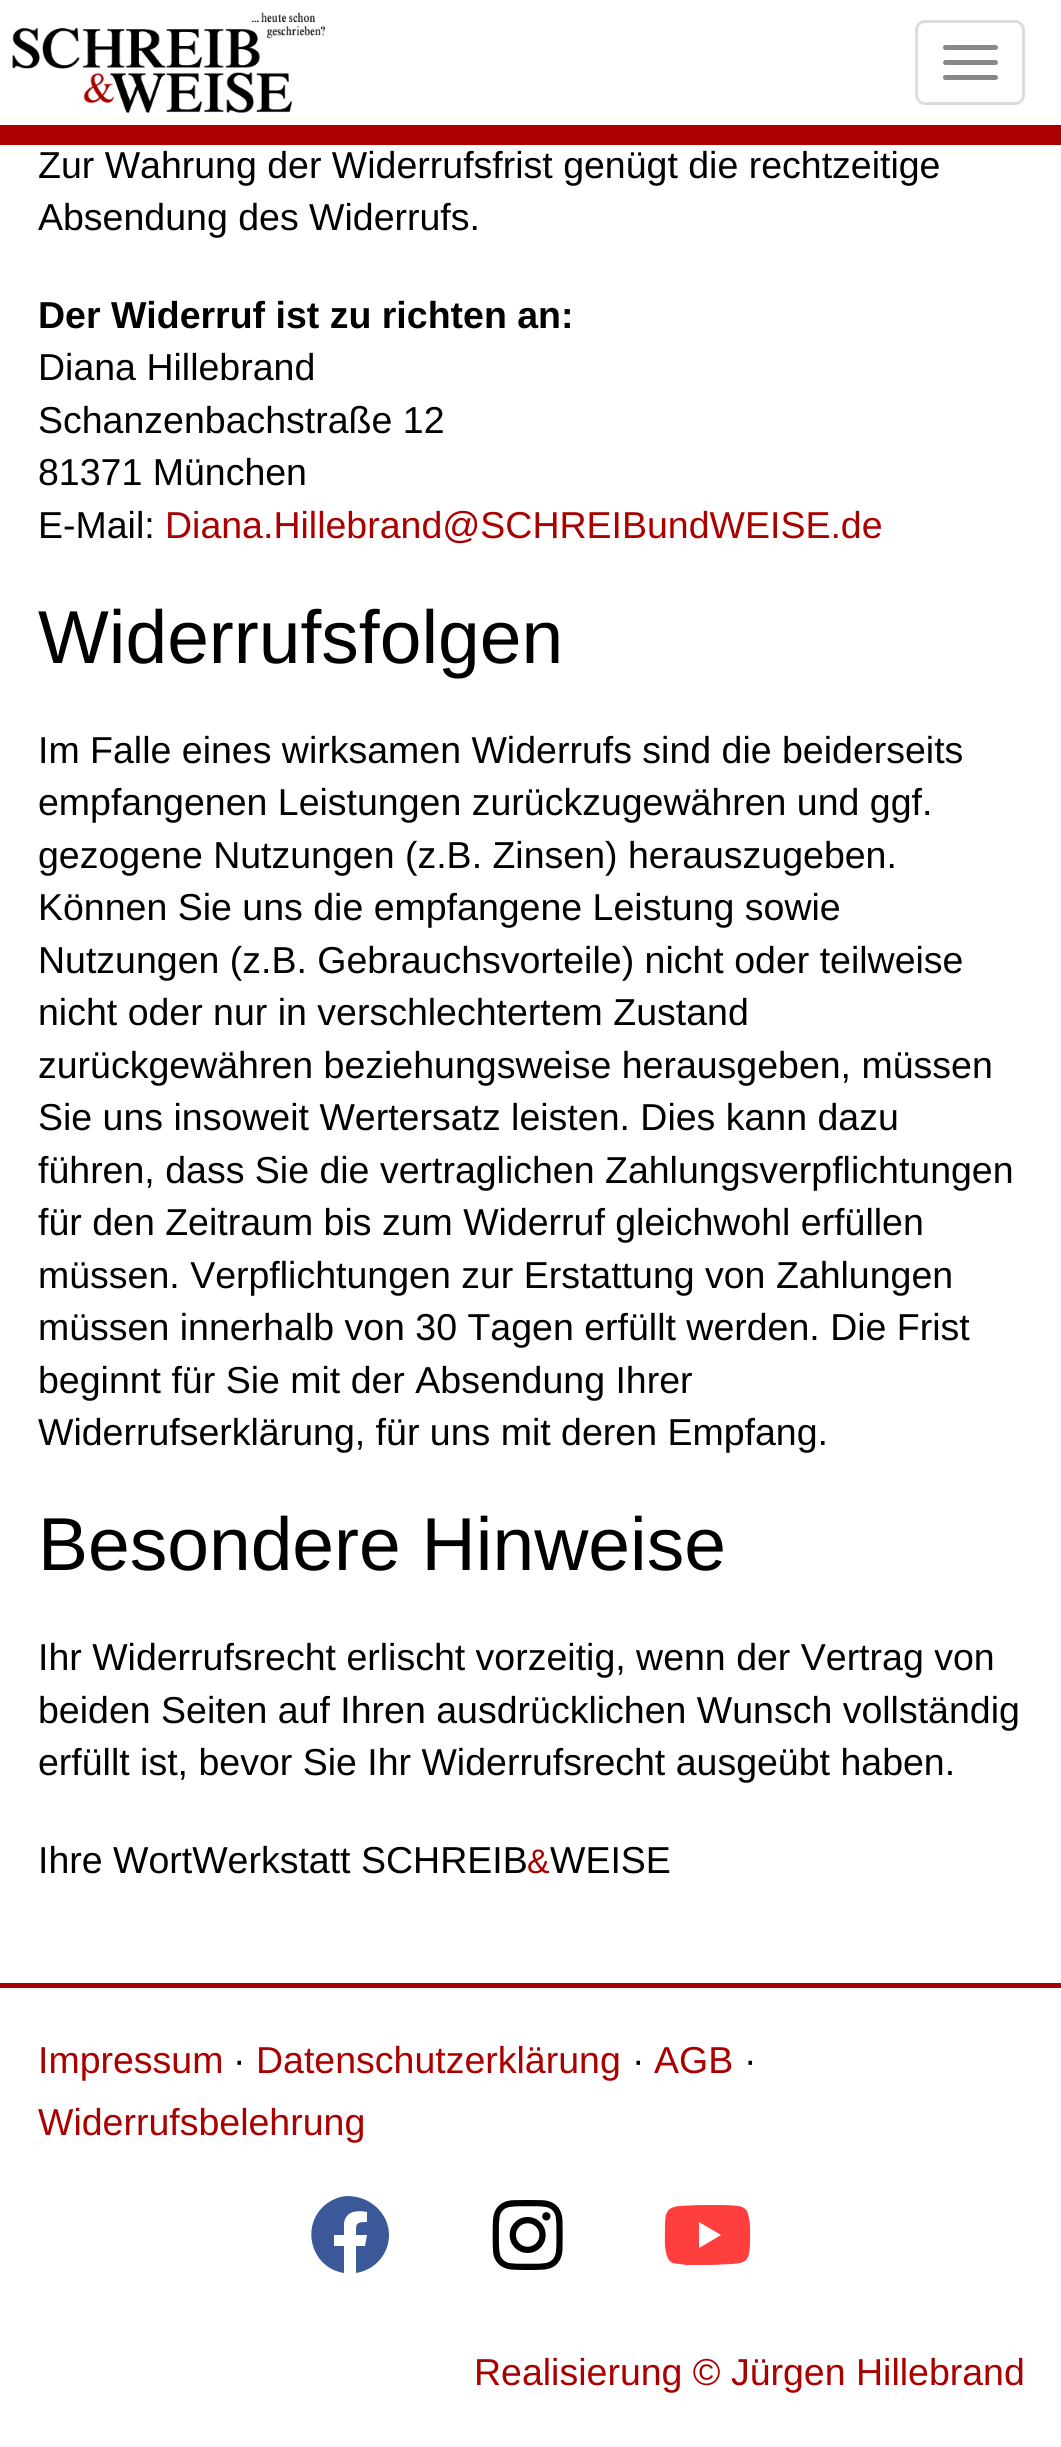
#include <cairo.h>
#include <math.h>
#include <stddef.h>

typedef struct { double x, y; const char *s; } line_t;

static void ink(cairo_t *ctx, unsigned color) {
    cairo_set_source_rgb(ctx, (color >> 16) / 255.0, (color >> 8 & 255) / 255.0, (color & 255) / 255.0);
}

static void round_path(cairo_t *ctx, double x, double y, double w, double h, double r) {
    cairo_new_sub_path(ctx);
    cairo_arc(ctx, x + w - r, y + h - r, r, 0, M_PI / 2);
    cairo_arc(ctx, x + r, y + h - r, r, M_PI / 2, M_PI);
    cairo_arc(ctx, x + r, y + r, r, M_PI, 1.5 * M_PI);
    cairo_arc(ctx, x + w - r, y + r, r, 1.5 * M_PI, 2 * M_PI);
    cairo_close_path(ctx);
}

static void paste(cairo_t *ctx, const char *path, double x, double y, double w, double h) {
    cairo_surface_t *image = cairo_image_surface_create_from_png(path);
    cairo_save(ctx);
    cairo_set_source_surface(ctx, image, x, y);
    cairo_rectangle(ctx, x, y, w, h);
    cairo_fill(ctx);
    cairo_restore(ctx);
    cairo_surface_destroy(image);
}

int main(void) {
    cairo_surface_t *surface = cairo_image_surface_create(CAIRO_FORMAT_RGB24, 1061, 2447);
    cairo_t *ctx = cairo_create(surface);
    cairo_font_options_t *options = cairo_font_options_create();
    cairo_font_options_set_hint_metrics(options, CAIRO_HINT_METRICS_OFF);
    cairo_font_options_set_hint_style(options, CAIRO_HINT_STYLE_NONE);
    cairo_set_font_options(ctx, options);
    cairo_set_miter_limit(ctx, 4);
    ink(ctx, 0xFFFFFF);
    cairo_paint(ctx);
    ink(ctx, 0xAA0000);
    cairo_rectangle(ctx, 0, 125, 1061, 20);
    cairo_fill(ctx);
    paste(ctx, "media/1.png", 12, 12, 313, 101);
    round_path(ctx, 916.5, 21.5, 107, 82, 8.5);
    ink(ctx, 0xDDDDDD);
    cairo_set_line_width(ctx, 3);
    cairo_stroke(ctx);
    ink(ctx, 0x888888);
    round_path(ctx, 943, 45, 55, 5, 2.5);
    cairo_fill(ctx);
    round_path(ctx, 943, 60, 55, 5, 2.5);
    cairo_fill(ctx);
    round_path(ctx, 943, 75, 55, 5, 2.5);
    cairo_fill(ctx);
    cairo_select_font_face(ctx, "Liberation Sans", CAIRO_FONT_SLANT_NORMAL, CAIRO_FONT_WEIGHT_NORMAL);
    cairo_set_font_size(ctx, 37.5);
    ink(ctx, 0x000000);
    cairo_move_to(ctx, 38, 178);
    cairo_show_text(ctx, "Zur Wahrung der Widerrufsfrist genügt die rechtzeitige");
    cairo_move_to(ctx, 38, 230);
    cairo_show_text(ctx, "Absendung des Widerrufs.");
    cairo_select_font_face(ctx, "Liberation Sans", CAIRO_FONT_SLANT_NORMAL, CAIRO_FONT_WEIGHT_BOLD);
    cairo_move_to(ctx, 38, 328);
    cairo_show_text(ctx, "Der Widerruf ist zu richten an:");
    cairo_select_font_face(ctx, "Liberation Sans", CAIRO_FONT_SLANT_NORMAL, CAIRO_FONT_WEIGHT_NORMAL);
    {
        static const line_t items[] = {
            {38, 380, "Diana Hillebrand"},
            {38, 433, "Schanzenbachstraße 12"},
            {38, 485, "81371 München"},
            {38, 538, "E-Mail:"},
        };
        for (size_t i = 0; i < sizeof items / sizeof *items; i++) {
            cairo_move_to(ctx, items[i].x, items[i].y);
            cairo_show_text(ctx, items[i].s);
        }
    }
    ink(ctx, 0xAA0000);
    cairo_move_to(ctx, 165, 538);
    cairo_show_text(ctx, "Diana.Hillebrand@SCHREIBundWEISE.de");
    cairo_set_font_size(ctx, 75);
    ink(ctx, 0x000000);
    cairo_move_to(ctx, 38, 663);
    cairo_show_text(ctx, "Widerrufsfolgen");
    cairo_set_font_size(ctx, 37.5);
    {
        static const line_t items[] = {
            {38, 763, "Im Falle eines wirksamen Widerrufs sind die beiderseits"},
            {38, 815, "empfangenen Leistungen zurückzugewähren und ggf."},
            {38, 868, "gezogene Nutzungen (z.B. Zinsen) herauszugeben."},
            {38, 920, "Können Sie uns die empfangene Leistung sowie"},
            {38, 973, "Nutzungen (z.B. Gebrauchsvorteile) nicht oder teilweise"},
            {38, 1025, "nicht oder nur in verschlechtertem Zustand"},
            {38, 1078, "zurückgewähren beziehungsweise herausgeben, müssen"},
            {38, 1130, "Sie uns insoweit Wertersatz leisten. Dies kann dazu"},
            {38, 1183, "führen, dass Sie die vertraglichen Zahlungsverpflichtungen"},
            {38, 1235, "für den Zeitraum bis zum Widerruf gleichwohl erfüllen"},
            {38, 1288, "müssen. Verpflichtungen zur Erstattung von Zahlungen"},
            {38, 1340, "müssen innerhalb von 30 Tagen erfüllt werden. Die Frist"},
            {38, 1393, "beginnt für Sie mit der Absendung Ihrer"},
            {38, 1445, "Widerrufserklärung, für uns mit deren Empfang."},
        };
        for (size_t i = 0; i < sizeof items / sizeof *items; i++) {
            cairo_move_to(ctx, items[i].x, items[i].y);
            cairo_show_text(ctx, items[i].s);
        }
    }
    cairo_set_font_size(ctx, 75);
    cairo_move_to(ctx, 38, 1570);
    cairo_show_text(ctx, "Besondere Hinweise");
    cairo_set_font_size(ctx, 37.5);
    {
        static const line_t items[] = {
            {38, 1670, "Ihr Widerrufsrecht erlischt vorzeitig, wenn der Vertrag von"},
            {38, 1723, "beiden Seiten auf Ihren ausdrücklichen Wunsch vollständig"},
            {38, 1775, "erfüllt ist, bevor Sie Ihr Widerrufsrecht ausgeübt haben."},
            {38, 1873, "Ihre WortWerkstatt SCHREIB"},
        };
        for (size_t i = 0; i < sizeof items / sizeof *items; i++) {
            cairo_move_to(ctx, items[i].x, items[i].y);
            cairo_show_text(ctx, items[i].s);
        }
    }
    cairo_set_font_size(ctx, 34);
    ink(ctx, 0xAA0000);
    cairo_move_to(ctx, 527, 1873);
    cairo_show_text(ctx, "&");
    cairo_set_font_size(ctx, 37.5);
    ink(ctx, 0x000000);
    cairo_move_to(ctx, 550, 1873);
    cairo_show_text(ctx, "WEISE");
    ink(ctx, 0xAA0000);
    cairo_rectangle(ctx, 0, 1983, 1061, 5);
    cairo_fill(ctx);
    cairo_move_to(ctx, 38, 2073);
    cairo_show_text(ctx, "Impressum");
    ink(ctx, 0x000000);
    cairo_move_to(ctx, 233, 2073);
    cairo_show_text(ctx, "·");
    ink(ctx, 0xAA0000);
    cairo_move_to(ctx, 256, 2073);
    cairo_show_text(ctx, "Datenschutzerklärung");
    ink(ctx, 0x000000);
    cairo_move_to(ctx, 632, 2073);
    cairo_show_text(ctx, "·");
    ink(ctx, 0xAA0000);
    cairo_move_to(ctx, 654, 2073);
    cairo_show_text(ctx, "AGB");
    ink(ctx, 0x000000);
    cairo_move_to(ctx, 744, 2073);
    cairo_show_text(ctx, "·");
    ink(ctx, 0xAA0000);
    cairo_move_to(ctx, 38, 2135);
    cairo_show_text(ctx, "Widerrufsbelehrung");
    ink(ctx, 0x3B5998);
    cairo_new_path(ctx);
    cairo_move_to(ctx, 389, 2235);
    cairo_curve_to(ctx, 389, 2254, 375, 2270, 356, 2273);
    cairo_line_to(ctx, 356, 2246);
    cairo_line_to(ctx, 365, 2246);
    cairo_line_to(ctx, 367, 2235);
    cairo_line_to(ctx, 356, 2235);
    cairo_curve_to(ctx, 356, 2224, 355, 2222, 367, 2222);
    cairo_line_to(ctx, 367, 2212);
    cairo_curve_to(ctx, 357, 2210, 346, 2211, 344, 2223);
    cairo_line_to(ctx, 344, 2235);
    cairo_line_to(ctx, 334, 2235);
    cairo_line_to(ctx, 334, 2246);
    cairo_line_to(ctx, 344, 2246);
    cairo_line_to(ctx, 344, 2273);
    cairo_curve_to(ctx, 311, 2268, 300, 2226, 325, 2205);
    cairo_curve_to(ctx, 331, 2200, 338, 2197, 346, 2196);
    cairo_curve_to(ctx, 355, 2196, 364, 2198, 371, 2203);
    cairo_curve_to(ctx, 382, 2210, 389, 2222, 389, 2235);
    cairo_close_path(ctx);
    cairo_fill(ctx);
    paste(ctx, "media/2.png", 492, 2200, 71, 70);
    ink(ctx, 0xFF3E3E);
    cairo_new_path(ctx);
    cairo_move_to(ctx, 748, 2214);
    cairo_curve_to(ctx, 751, 2224, 750, 2235, 750, 2245);
    cairo_curve_to(ctx, 749, 2260, 747, 2263, 732, 2264);
    cairo_line_to(ctx, 711, 2265);
    cairo_line_to(ctx, 686, 2265);
    cairo_curve_to(ctx, 682, 2264, 677, 2264, 673, 2263);
    cairo_curve_to(ctx, 670, 2262, 668, 2259, 667, 2256);
    cairo_curve_to(ctx, 664, 2248, 665, 2237, 665, 2228);
    cairo_curve_to(ctx, 665, 2215, 665, 2207, 680, 2206);
    cairo_line_to(ctx, 699, 2205);
    cairo_line_to(ctx, 725, 2205);
    cairo_curve_to(ctx, 733, 2206, 746, 2204, 748, 2214);
    cairo_close_path(ctx);
    cairo_move_to(ctx, 699, 2248);
    cairo_line_to(ctx, 721, 2235);
    cairo_line_to(ctx, 699, 2222);
    cairo_close_path(ctx);
    cairo_fill(ctx);
    ink(ctx, 0xAA0000);
    cairo_move_to(ctx, 474, 2385);
    cairo_show_text(ctx, "Realisierung © Jürgen Hillebrand");
    cairo_surface_write_to_png(surface, "image.png");
    cairo_font_options_destroy(options);
    cairo_destroy(ctx);
    cairo_surface_destroy(surface);
    return 0;
}
